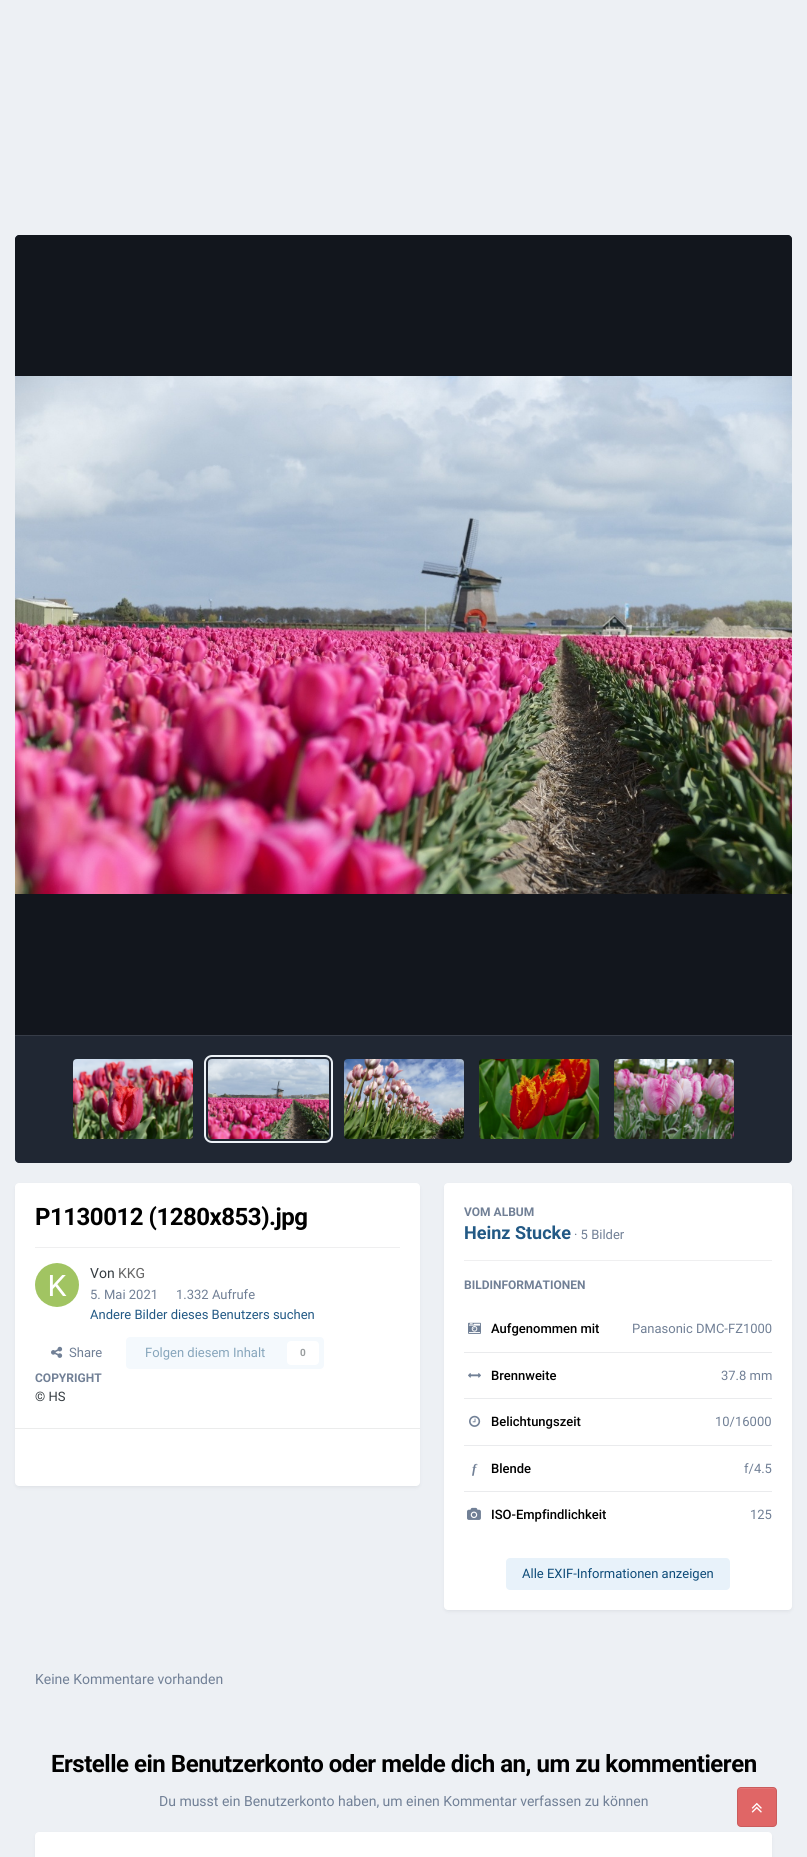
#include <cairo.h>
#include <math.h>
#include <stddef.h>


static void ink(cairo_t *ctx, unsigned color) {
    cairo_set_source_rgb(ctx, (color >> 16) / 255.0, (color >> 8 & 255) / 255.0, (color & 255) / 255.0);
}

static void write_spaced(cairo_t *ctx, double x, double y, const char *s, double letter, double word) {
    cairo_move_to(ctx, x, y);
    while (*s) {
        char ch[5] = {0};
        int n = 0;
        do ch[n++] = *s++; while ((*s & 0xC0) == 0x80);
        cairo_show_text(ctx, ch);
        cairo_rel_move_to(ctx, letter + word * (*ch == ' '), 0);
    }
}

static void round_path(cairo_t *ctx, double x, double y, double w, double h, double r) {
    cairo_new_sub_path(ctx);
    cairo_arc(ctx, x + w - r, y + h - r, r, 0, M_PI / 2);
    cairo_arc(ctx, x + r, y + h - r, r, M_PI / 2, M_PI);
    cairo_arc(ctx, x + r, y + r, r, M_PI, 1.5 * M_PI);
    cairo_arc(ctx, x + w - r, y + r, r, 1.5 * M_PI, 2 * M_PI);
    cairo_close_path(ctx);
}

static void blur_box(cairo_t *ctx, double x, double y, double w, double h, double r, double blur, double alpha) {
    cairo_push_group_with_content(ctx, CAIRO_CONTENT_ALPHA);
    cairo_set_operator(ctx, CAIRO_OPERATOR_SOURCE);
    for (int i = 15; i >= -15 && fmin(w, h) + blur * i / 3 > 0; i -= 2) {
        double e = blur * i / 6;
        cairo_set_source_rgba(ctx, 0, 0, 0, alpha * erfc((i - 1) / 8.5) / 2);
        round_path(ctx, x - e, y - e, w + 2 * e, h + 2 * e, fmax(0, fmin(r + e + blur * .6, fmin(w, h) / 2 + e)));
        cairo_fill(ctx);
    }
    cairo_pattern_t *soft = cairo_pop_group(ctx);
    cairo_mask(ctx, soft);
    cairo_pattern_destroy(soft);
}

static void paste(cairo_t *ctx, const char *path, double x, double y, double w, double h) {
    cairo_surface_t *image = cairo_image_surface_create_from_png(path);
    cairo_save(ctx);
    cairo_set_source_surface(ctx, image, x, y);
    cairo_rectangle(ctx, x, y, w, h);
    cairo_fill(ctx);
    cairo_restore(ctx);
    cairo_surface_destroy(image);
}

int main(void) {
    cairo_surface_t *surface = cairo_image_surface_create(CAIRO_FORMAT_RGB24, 807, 1857);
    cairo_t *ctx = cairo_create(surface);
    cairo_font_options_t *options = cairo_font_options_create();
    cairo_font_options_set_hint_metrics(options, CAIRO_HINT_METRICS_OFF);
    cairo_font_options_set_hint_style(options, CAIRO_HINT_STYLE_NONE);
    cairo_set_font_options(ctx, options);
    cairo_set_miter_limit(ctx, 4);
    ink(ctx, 0xEDF0F4);
    cairo_paint(ctx);
    ink(ctx, 0x2D3748);
    cairo_new_path(ctx);
    cairo_move_to(ctx, 19, 235);
    cairo_line_to(ctx, 788, 235);
    cairo_curve_to(ctx, 790, 235, 792, 237, 792, 239);
    cairo_line_to(ctx, 792, 1035);
    cairo_line_to(ctx, 15, 1035);
    cairo_line_to(ctx, 15, 239);
    cairo_curve_to(ctx, 15, 237, 17, 235, 19, 235);
    cairo_close_path(ctx);
    cairo_fill(ctx);
    cairo_set_source_rgba(ctx, 0, 0, 0, 0.6);
    cairo_new_path(ctx);
    cairo_move_to(ctx, 19, 235);
    cairo_line_to(ctx, 788, 235);
    cairo_curve_to(ctx, 790, 235, 792, 237, 792, 239);
    cairo_line_to(ctx, 792, 1035);
    cairo_line_to(ctx, 15, 1035);
    cairo_line_to(ctx, 15, 239);
    cairo_curve_to(ctx, 15, 237, 17, 235, 19, 235);
    cairo_close_path(ctx);
    cairo_fill(ctx);
    paste(ctx, "media/1.png", 15, 376, 777, 518);
    paste(ctx, "media/2.png", 31, 623, 13, 23);
    paste(ctx, "media/3.png", 763, 623, 14, 23);
    ink(ctx, 0x2D3748);
    cairo_new_path(ctx);
    cairo_move_to(ctx, 15, 1035);
    cairo_line_to(ctx, 792, 1035);
    cairo_line_to(ctx, 792, 1159);
    cairo_curve_to(ctx, 792, 1161, 790, 1163, 788, 1163);
    cairo_line_to(ctx, 19, 1163);
    cairo_curve_to(ctx, 17, 1163, 15, 1161, 15, 1159);
    cairo_close_path(ctx);
    cairo_fill(ctx);
    cairo_set_source_rgba(ctx, 0, 0, 0, 0.3);
    cairo_new_path(ctx);
    cairo_move_to(ctx, 15, 1035);
    cairo_line_to(ctx, 792, 1035);
    cairo_line_to(ctx, 792, 1159);
    cairo_curve_to(ctx, 792, 1161, 790, 1163, 788, 1163);
    cairo_line_to(ctx, 19, 1163);
    cairo_curve_to(ctx, 17, 1163, 15, 1161, 15, 1159);
    cairo_close_path(ctx);
    cairo_fill(ctx);
    ink(ctx, 0x363C47);
    cairo_rectangle(ctx, 15, 1035, 777, 1);
    cairo_fill(ctx);
    paste(ctx, "media/4.png", 73, 1059, 120, 80);
    round_path(ctx, 205, 1056, 127, 86, 7);
    ink(ctx, 0xEDF2F7);
    cairo_stroke(ctx);
    paste(ctx, "media/5.png", 208, 1059, 121, 80);
    paste(ctx, "media/6.png", 344, 1059, 120, 80);
    paste(ctx, "media/7.png", 479, 1059, 120, 80);
    paste(ctx, "media/8.png", 614, 1059, 120, 80);
    ink(ctx, 0x2D3748);
    blur_box(ctx, 16, 1186, 403, 301, 3, 2, 0.1);
    ink(ctx, 0xFFFFFF);
    round_path(ctx, 15, 1183, 405, 303, 4);
    cairo_fill(ctx);
    cairo_select_font_face(ctx, "Roboto", CAIRO_FONT_SLANT_NORMAL, CAIRO_FONT_WEIGHT_BOLD);
    cairo_set_font_size(ctx, 24);
    ink(ctx, 0x000000);
    write_spaced(ctx, 35, 1225, "P1130012 (1280x853).jpg", -0.48, 0);
    ink(ctx, 0xEFEFF0);
    cairo_rectangle(ctx, 35, 1247, 365, 1);
    cairo_fill(ctx);
    paste(ctx, "media/9.png", 35, 1263, 44, 44);
    cairo_select_font_face(ctx, "Roboto", CAIRO_FONT_SLANT_NORMAL, CAIRO_FONT_WEIGHT_NORMAL);
    cairo_set_font_size(ctx, 14);
    ink(ctx, 0x353C41);
    cairo_move_to(ctx, 90, 1278);
    cairo_show_text(ctx, "Von");
    ink(ctx, 0x666666);
    cairo_move_to(ctx, 118, 1278);
    cairo_show_text(ctx, "KKG");
    cairo_set_font_size(ctx, 13);
    ink(ctx, 0x718096);
    cairo_move_to(ctx, 90, 1299);
    cairo_show_text(ctx, "5. Mai 2021");
    cairo_move_to(ctx, 176, 1299);
    cairo_show_text(ctx, "1.332 Aufrufe");
    ink(ctx, 0x225985);
    cairo_move_to(ctx, 90, 1319);
    cairo_show_text(ctx, "Andere Bilder dieses Benutzers suchen");
    paste(ctx, "media/10.png", 51, 1346, 12, 12);
    ink(ctx, 0x718096);
    cairo_move_to(ctx, 69, 1357);
    cairo_show_text(ctx, "Share");
    ink(ctx, 0xF4F9FD);
    round_path(ctx, 126, 1337, 198, 32, 4);
    cairo_fill(ctx);
    ink(ctx, 0x87A6BC);
    cairo_move_to(ctx, 145, 1357);
    cairo_show_text(ctx, "Folgen diesem Inhalt");
    ink(ctx, 0xFFFFFF);
    round_path(ctx, 287, 1341, 32, 24, 4);
    cairo_fill(ctx);
    cairo_select_font_face(ctx, "Roboto", CAIRO_FONT_SLANT_NORMAL, CAIRO_FONT_WEIGHT_BOLD);
    cairo_set_font_size(ctx, 10);
    ink(ctx, 0x9A9EA0);
    cairo_move_to(ctx, 300, 1356);
    cairo_show_text(ctx, "0");
    cairo_set_font_size(ctx, 12);
    ink(ctx, 0x718096);
    cairo_move_to(ctx, 35, 1382);
    cairo_show_text(ctx, "COPYRIGHT");
    cairo_select_font_face(ctx, "Roboto", CAIRO_FONT_SLANT_NORMAL, CAIRO_FONT_WEIGHT_NORMAL);
    cairo_set_font_size(ctx, 13);
    ink(ctx, 0x353C41);
    cairo_move_to(ctx, 35, 1401);
    cairo_show_text(ctx, "© HS");
    ink(ctx, 0xEBECEC);
    cairo_rectangle(ctx, 15, 1428, 405, 1);
    cairo_fill(ctx);
    ink(ctx, 0x2D3748);
    blur_box(ctx, 445, 1186, 346, 425, 3, 2, 0.1);
    ink(ctx, 0xFFFFFF);
    round_path(ctx, 444, 1183, 348, 427, 4);
    cairo_fill(ctx);
    cairo_select_font_face(ctx, "Roboto", CAIRO_FONT_SLANT_NORMAL, CAIRO_FONT_WEIGHT_BOLD);
    cairo_set_font_size(ctx, 12);
    ink(ctx, 0x718096);
    cairo_move_to(ctx, 464, 1216);
    cairo_show_text(ctx, "VOM ALBUM");
    cairo_set_font_size(ctx, 18);
    ink(ctx, 0x225985);
    cairo_move_to(ctx, 464, 1239);
    cairo_show_text(ctx, "Heinz Stucke");
    cairo_select_font_face(ctx, "Roboto", CAIRO_FONT_SLANT_NORMAL, CAIRO_FONT_WEIGHT_NORMAL);
    cairo_set_font_size(ctx, 13);
    ink(ctx, 0x718096);
    cairo_move_to(ctx, 574, 1239);
    cairo_show_text(ctx, "· 5 Bilder");
    ink(ctx, 0xEFEFF0);
    cairo_rectangle(ctx, 464, 1260, 308, 1);
    cairo_fill(ctx);
    cairo_select_font_face(ctx, "Roboto", CAIRO_FONT_SLANT_NORMAL, CAIRO_FONT_WEIGHT_BOLD);
    cairo_set_font_size(ctx, 12);
    ink(ctx, 0x718096);
    cairo_move_to(ctx, 464, 1289);
    cairo_show_text(ctx, "BILDINFORMATIONEN");
    ink(ctx, 0xEAEBED);
    cairo_rectangle(ctx, 464, 1352, 308, 1);
    cairo_fill(ctx);
    paste(ctx, "media/11.png", 468, 1322, 13, 12);
    cairo_select_font_face(ctx, "Roboto Medium", CAIRO_FONT_SLANT_NORMAL, CAIRO_FONT_WEIGHT_NORMAL);
    cairo_set_font_size(ctx, 13);
    ink(ctx, 0x000000);
    cairo_move_to(ctx, 491, 1333);
    cairo_show_text(ctx, "Aufgenommen mit");
    cairo_select_font_face(ctx, "Roboto", CAIRO_FONT_SLANT_NORMAL, CAIRO_FONT_WEIGHT_NORMAL);
    ink(ctx, 0x718096);
    cairo_move_to(ctx, 632, 1333);
    cairo_show_text(ctx, "Panasonic DMC-FZ1000");
    ink(ctx, 0xEAEBED);
    cairo_rectangle(ctx, 464, 1398, 308, 1);
    cairo_fill(ctx);
    paste(ctx, "media/12.png", 468, 1373, 13, 5);
    cairo_select_font_face(ctx, "Roboto Medium", CAIRO_FONT_SLANT_NORMAL, CAIRO_FONT_WEIGHT_NORMAL);
    ink(ctx, 0x000000);
    cairo_move_to(ctx, 491, 1380);
    cairo_show_text(ctx, "Brennweite");
    cairo_select_font_face(ctx, "Roboto", CAIRO_FONT_SLANT_NORMAL, CAIRO_FONT_WEIGHT_NORMAL);
    ink(ctx, 0x718096);
    cairo_move_to(ctx, 721, 1380);
    cairo_show_text(ctx, "37.8 mm");
    ink(ctx, 0xEAEBED);
    cairo_rectangle(ctx, 464, 1445, 308, 1);
    cairo_fill(ctx);
    paste(ctx, "media/13.png", 469, 1415, 12, 12);
    cairo_select_font_face(ctx, "Roboto Medium", CAIRO_FONT_SLANT_NORMAL, CAIRO_FONT_WEIGHT_NORMAL);
    ink(ctx, 0x000000);
    cairo_move_to(ctx, 491, 1426);
    cairo_show_text(ctx, "Belichtungszeit");
    cairo_select_font_face(ctx, "Roboto", CAIRO_FONT_SLANT_NORMAL, CAIRO_FONT_WEIGHT_NORMAL);
    ink(ctx, 0x718096);
    cairo_move_to(ctx, 715, 1426);
    cairo_show_text(ctx, "10/16000");
    ink(ctx, 0xEAEBED);
    cairo_rectangle(ctx, 464, 1491, 308, 1);
    cairo_fill(ctx);
    cairo_select_font_face(ctx, "Liberation Serif", CAIRO_FONT_SLANT_ITALIC, CAIRO_FONT_WEIGHT_BOLD);
    ink(ctx, 0x718096);
    cairo_move_to(ctx, 472, 1473);
    cairo_show_text(ctx, "f");
    cairo_select_font_face(ctx, "Roboto Medium", CAIRO_FONT_SLANT_NORMAL, CAIRO_FONT_WEIGHT_NORMAL);
    ink(ctx, 0x000000);
    cairo_move_to(ctx, 491, 1473);
    cairo_show_text(ctx, "Blende");
    cairo_select_font_face(ctx, "Roboto", CAIRO_FONT_SLANT_NORMAL, CAIRO_FONT_WEIGHT_NORMAL);
    ink(ctx, 0x718096);
    cairo_move_to(ctx, 744, 1473);
    cairo_show_text(ctx, "f/4.5");
    paste(ctx, "media/14.png", 467, 1507, 14, 13);
    cairo_select_font_face(ctx, "Roboto Medium", CAIRO_FONT_SLANT_NORMAL, CAIRO_FONT_WEIGHT_NORMAL);
    ink(ctx, 0x000000);
    cairo_move_to(ctx, 491, 1519);
    cairo_show_text(ctx, "ISO-Empfindlichkeit");
    cairo_select_font_face(ctx, "Roboto", CAIRO_FONT_SLANT_NORMAL, CAIRO_FONT_WEIGHT_NORMAL);
    ink(ctx, 0x718096);
    cairo_move_to(ctx, 750, 1519);
    cairo_show_text(ctx, "125");
    ink(ctx, 0xE8F2FA);
    round_path(ctx, 506, 1558, 224, 32, 4);
    cairo_fill(ctx);
    ink(ctx, 0x0E4C79);
    cairo_move_to(ctx, 522, 1578);
    cairo_show_text(ctx, "Alle EXIF-Informationen anzeigen");
    cairo_set_font_size(ctx, 14);
    ink(ctx, 0x718096);
    cairo_move_to(ctx, 35, 1684);
    cairo_show_text(ctx, "Keine Kommentare vorhanden");
    cairo_select_font_face(ctx, "Roboto", CAIRO_FONT_SLANT_NORMAL, CAIRO_FONT_WEIGHT_BOLD);
    cairo_set_font_size(ctx, 24);
    ink(ctx, 0x000000);
    write_spaced(ctx, 51, 1772, "Erstelle ein Benutzerkonto oder melde dich an, um zu kommentieren", -0.48, 0);
    cairo_select_font_face(ctx, "Roboto", CAIRO_FONT_SLANT_NORMAL, CAIRO_FONT_WEIGHT_NORMAL);
    cairo_set_font_size(ctx, 14);
    ink(ctx, 0x718096);
    cairo_move_to(ctx, 159, 1806);
    cairo_show_text(ctx, "Du musst ein Benutzerkonto haben, um einen Kommentar verfassen zu können");
    ink(ctx, 0x2D3748);
    blur_box(ctx, 36, 1835, 735, 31, 3, 2, 0.1);
    ink(ctx, 0xFFFFFF);
    round_path(ctx, 35, 1832, 737, 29, 4);
    cairo_fill(ctx);
    ink(ctx, 0xE06666);
    round_path(ctx, 737, 1787, 40, 40, 4);
    cairo_fill(ctx);
    ink(ctx, 0xE37575);
    cairo_new_path(ctx);
    cairo_move_to(ctx, 741, 1789);
    cairo_line_to(ctx, 773, 1789);
    cairo_curve_to(ctx, 775, 1789, 776, 1790, 776, 1792);
    cairo_curve_to(ctx, 776, 1787, 772, 1788, 767.5, 1788);
    cairo_line_to(ctx, 746.5, 1788);
    cairo_curve_to(ctx, 742, 1788, 738, 1787, 738, 1792);
    cairo_curve_to(ctx, 738, 1790, 739, 1789, 741, 1789);
    cairo_close_path(ctx);
    cairo_fill(ctx);
    round_path(ctx, 737.5, 1787.5, 39, 39, 3.5);
    cairo_set_source_rgba(ctx, 0, 0, 0, 0.1);
    cairo_set_line_width(ctx, 1);
    cairo_stroke(ctx);
    paste(ctx, "media/15.png", 751, 1802, 11, 11);
    cairo_surface_write_to_png(surface, "image.png");
    cairo_font_options_destroy(options);
    cairo_destroy(ctx);
    cairo_surface_destroy(surface);
    return 0;
}
